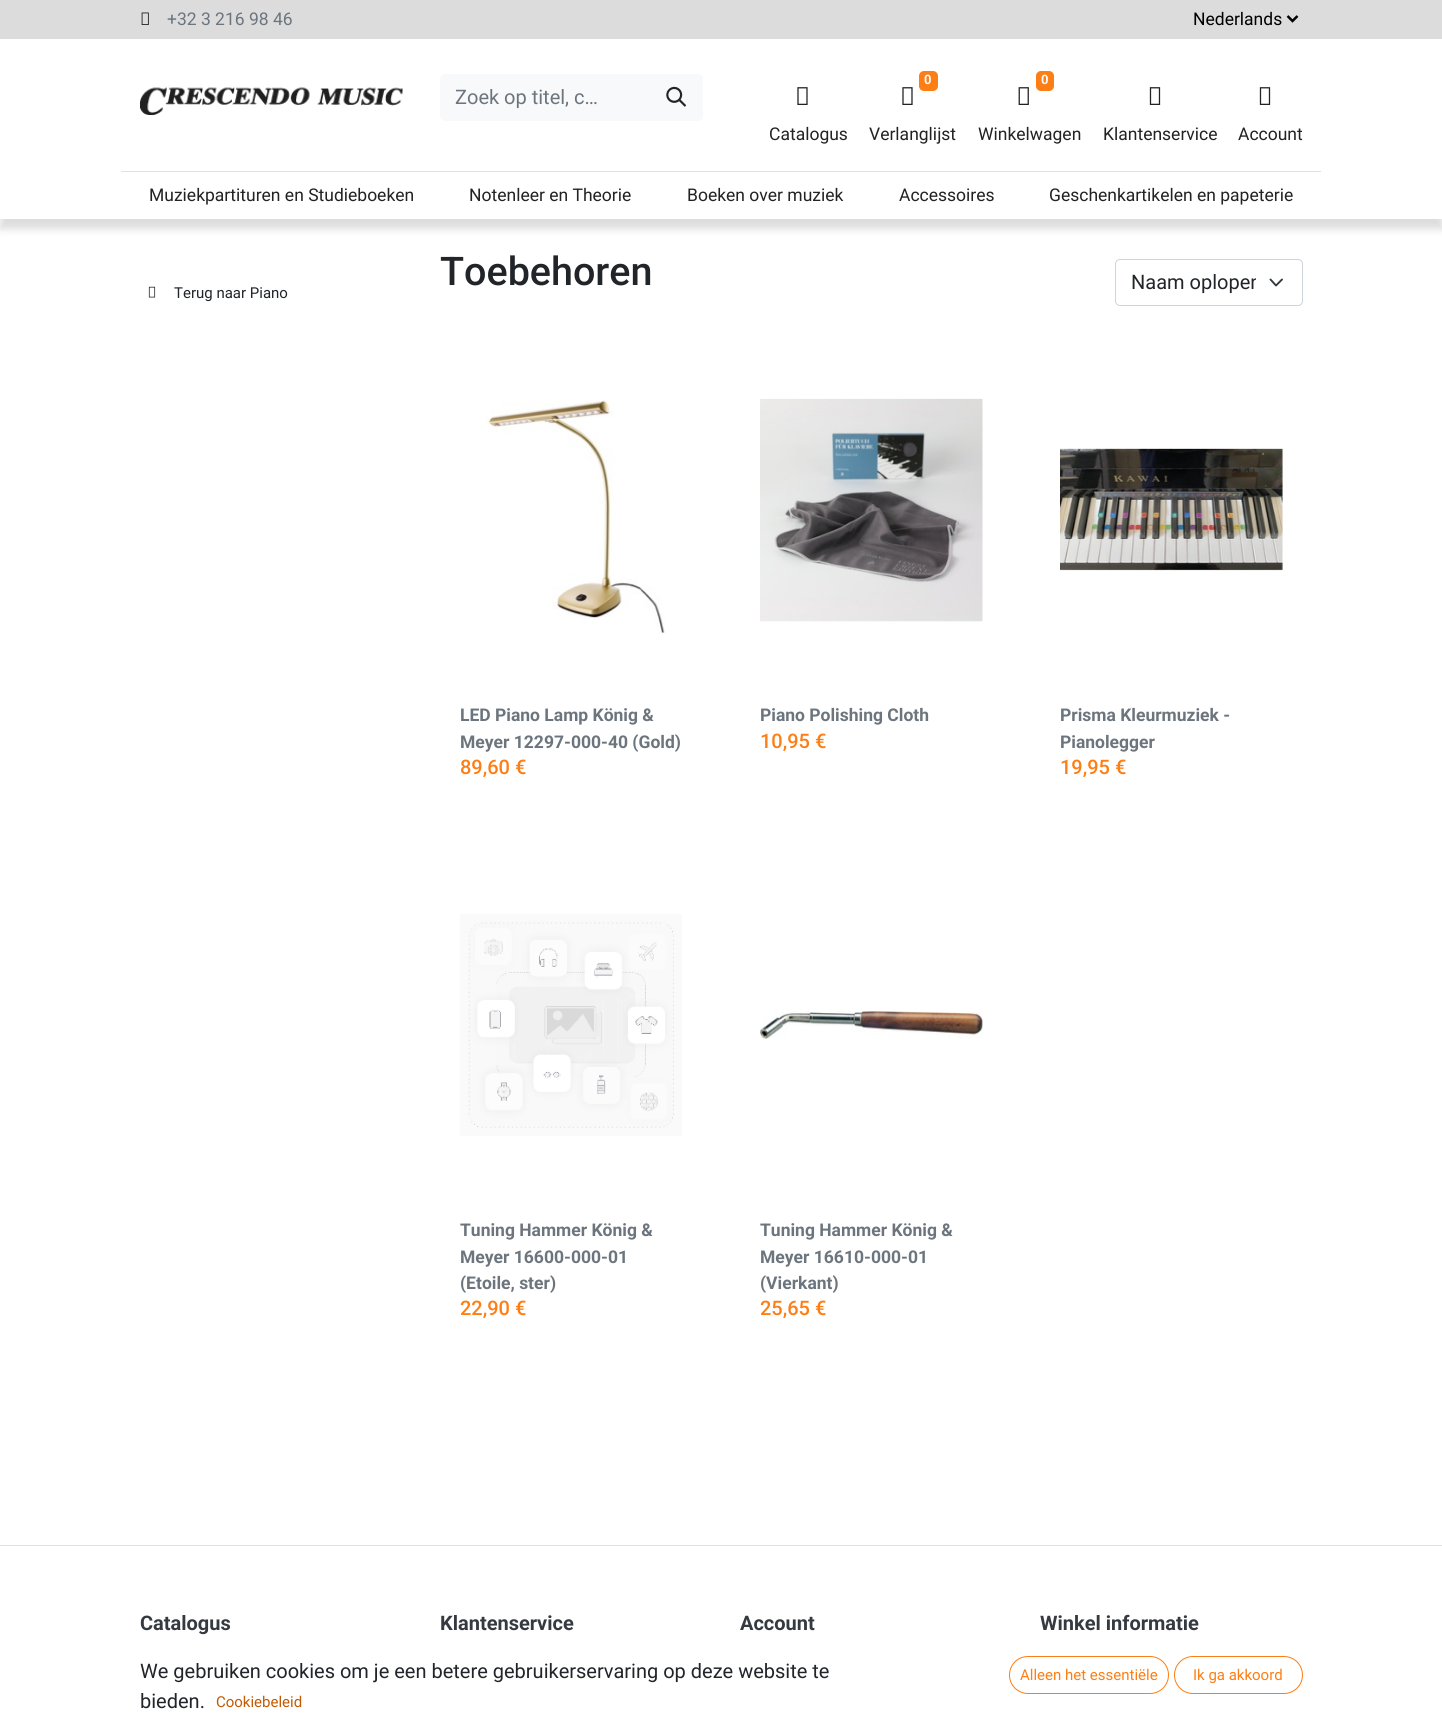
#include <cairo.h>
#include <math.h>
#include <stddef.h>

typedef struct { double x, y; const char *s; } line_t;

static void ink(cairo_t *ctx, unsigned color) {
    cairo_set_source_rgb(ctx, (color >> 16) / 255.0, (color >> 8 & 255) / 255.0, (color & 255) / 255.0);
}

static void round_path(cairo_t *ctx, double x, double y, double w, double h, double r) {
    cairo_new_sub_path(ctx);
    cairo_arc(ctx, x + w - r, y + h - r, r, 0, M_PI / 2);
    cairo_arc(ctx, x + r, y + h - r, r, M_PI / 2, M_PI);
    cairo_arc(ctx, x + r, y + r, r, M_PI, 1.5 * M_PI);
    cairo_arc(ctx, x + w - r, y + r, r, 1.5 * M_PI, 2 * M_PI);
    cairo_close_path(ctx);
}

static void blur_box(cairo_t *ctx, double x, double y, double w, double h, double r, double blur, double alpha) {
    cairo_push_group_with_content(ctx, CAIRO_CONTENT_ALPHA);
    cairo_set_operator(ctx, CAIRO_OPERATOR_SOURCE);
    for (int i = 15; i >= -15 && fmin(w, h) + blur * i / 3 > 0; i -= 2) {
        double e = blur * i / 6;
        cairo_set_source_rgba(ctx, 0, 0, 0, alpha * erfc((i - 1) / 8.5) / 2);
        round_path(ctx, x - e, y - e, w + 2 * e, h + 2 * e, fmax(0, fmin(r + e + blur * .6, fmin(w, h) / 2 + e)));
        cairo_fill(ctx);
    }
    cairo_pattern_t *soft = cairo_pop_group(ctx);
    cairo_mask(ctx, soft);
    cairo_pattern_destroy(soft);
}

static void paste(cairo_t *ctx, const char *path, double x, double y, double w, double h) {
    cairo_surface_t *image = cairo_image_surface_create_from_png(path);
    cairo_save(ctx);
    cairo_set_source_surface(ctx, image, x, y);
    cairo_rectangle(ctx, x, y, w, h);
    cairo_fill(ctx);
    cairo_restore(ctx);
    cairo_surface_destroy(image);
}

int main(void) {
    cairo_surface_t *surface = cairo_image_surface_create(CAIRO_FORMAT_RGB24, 1442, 1736);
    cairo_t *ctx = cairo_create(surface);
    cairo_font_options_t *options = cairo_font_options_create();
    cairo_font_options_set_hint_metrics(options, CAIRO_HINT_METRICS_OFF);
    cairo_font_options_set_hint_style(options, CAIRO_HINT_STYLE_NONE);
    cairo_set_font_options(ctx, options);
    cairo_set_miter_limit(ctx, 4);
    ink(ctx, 0xFFFFFF);
    cairo_paint(ctx);
    ink(ctx, 0xDCDCDC);
    cairo_rectangle(ctx, 0, 0, 1442, 39);
    cairo_fill(ctx);
    paste(ctx, "media/1.png", 141, 12, 8, 13);
    cairo_select_font_face(ctx, "Roboto", CAIRO_FONT_SLANT_NORMAL, CAIRO_FONT_WEIGHT_NORMAL);
    cairo_set_font_size(ctx, 17.5);
    ink(ctx, 0x6C757D);
    cairo_move_to(ctx, 167, 25);
    cairo_show_text(ctx, "+32 3 216 98 46");
    cairo_new_path(ctx);
    cairo_move_to(ctx, 1287.5, 16);
    cairo_line_to(ctx, 1292.5, 21);
    cairo_line_to(ctx, 1297.5, 16);
    ink(ctx, 0x000000);
    cairo_set_line_width(ctx, 2.5);
    cairo_stroke(ctx);
    cairo_move_to(ctx, 1193, 25);
    cairo_show_text(ctx, "Nederlands");
    cairo_save(ctx);
    cairo_set_fill_rule(ctx, CAIRO_FILL_RULE_EVEN_ODD);
    cairo_new_path(ctx);
    cairo_move_to(ctx, 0, 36);
    cairo_line_to(ctx, 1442, 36);
    cairo_line_to(ctx, 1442, 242);
    cairo_line_to(ctx, 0, 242);
    cairo_close_path(ctx);
    cairo_move_to(ctx, 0, 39);
    cairo_line_to(ctx, 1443, 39);
    cairo_line_to(ctx, 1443, 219);
    cairo_line_to(ctx, 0, 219);
    cairo_close_path(ctx);
    cairo_clip(ctx);
    ink(ctx, 0xC7C7C7);
    blur_box(ctx, 0, 49, 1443, 180, 0, 4, 0.62);
    cairo_restore(ctx);
    paste(ctx, "media/2.png", 140, 87, 263, 28);
    ink(ctx, 0xF8F9FA);
    cairo_new_path(ctx);
    cairo_move_to(ctx, 445, 74);
    cairo_line_to(ctx, 651, 74);
    cairo_line_to(ctx, 651, 121);
    cairo_line_to(ctx, 445, 121);
    cairo_curve_to(ctx, 442, 121, 440, 119, 440, 116);
    cairo_line_to(ctx, 440, 79);
    cairo_curve_to(ctx, 440, 76, 442, 74, 445, 74);
    cairo_close_path(ctx);
    cairo_fill(ctx);
    cairo_set_font_size(ctx, 20);
    ink(ctx, 0x6C757D);
    cairo_move_to(ctx, 455, 104);
    cairo_show_text(ctx, "Zoek op titel, c…");
    ink(ctx, 0xF8F9FA);
    cairo_new_path(ctx);
    cairo_move_to(ctx, 650, 74);
    cairo_line_to(ctx, 698, 74);
    cairo_curve_to(ctx, 701, 74, 703, 76, 703, 79);
    cairo_line_to(ctx, 703, 116);
    cairo_curve_to(ctx, 703, 119, 701, 121, 698, 121);
    cairo_line_to(ctx, 650, 121);
    cairo_close_path(ctx);
    cairo_fill(ctx);
    paste(ctx, "media/3.png", 666, 86, 21, 21);
    paste(ctx, "media/4.png", 797, 87, 11, 18);
    cairo_set_font_size(ctx, 17.5);
    ink(ctx, 0x222222);
    cairo_move_to(ctx, 769, 140);
    cairo_show_text(ctx, "Catalogus");
    ink(ctx, 0xFD7E14);
    round_path(ctx, 919, 71, 19, 20, 5);
    cairo_fill(ctx);
    cairo_select_font_face(ctx, "Roboto", CAIRO_FONT_SLANT_NORMAL, CAIRO_FONT_WEIGHT_BOLD);
    cairo_set_font_size(ctx, 13);
    ink(ctx, 0xF8F9FA);
    cairo_move_to(ctx, 924, 84);
    cairo_show_text(ctx, "0");
    paste(ctx, "media/4.png", 902, 87, 11, 18);
    cairo_select_font_face(ctx, "Roboto", CAIRO_FONT_SLANT_NORMAL, CAIRO_FONT_WEIGHT_NORMAL);
    cairo_set_font_size(ctx, 17.5);
    ink(ctx, 0x222222);
    cairo_move_to(ctx, 869, 140);
    cairo_show_text(ctx, "Verlanglijst");
    ink(ctx, 0xFD7E14);
    round_path(ctx, 1036, 71, 18, 20, 5);
    cairo_fill(ctx);
    cairo_select_font_face(ctx, "Roboto", CAIRO_FONT_SLANT_NORMAL, CAIRO_FONT_WEIGHT_BOLD);
    cairo_set_font_size(ctx, 13);
    ink(ctx, 0xF8F9FA);
    cairo_move_to(ctx, 1041, 84);
    cairo_show_text(ctx, "0");
    paste(ctx, "media/5.png", 1018, 87, 11, 18);
    cairo_select_font_face(ctx, "Roboto", CAIRO_FONT_SLANT_NORMAL, CAIRO_FONT_WEIGHT_NORMAL);
    cairo_set_font_size(ctx, 17.5);
    ink(ctx, 0x222222);
    cairo_move_to(ctx, 978, 140);
    cairo_show_text(ctx, "Winkelwagen");
    paste(ctx, "media/6.png", 1149, 87, 12, 18);
    cairo_move_to(ctx, 1103, 140);
    cairo_show_text(ctx, "Klantenservice");
    paste(ctx, "media/6.png", 1259, 87, 12, 18);
    cairo_move_to(ctx, 1238, 140);
    cairo_show_text(ctx, "Account");
    ink(ctx, 0xDEE2E6);
    cairo_rectangle(ctx, 121, 171, 1200, 1);
    cairo_fill(ctx);
    ink(ctx, 0xFFFFFF);
    cairo_rectangle(ctx, 121, 218, 1200, 1);
    cairo_fill(ctx);
    ink(ctx, 0x222222);
    {
        static const line_t items[] = {
            {149, 201, "Muziekpartituren en Studieboeken"},
            {469, 201, "Notenleer en Theorie"},
            {687, 201, "Boeken over muziek"},
            {899, 201, "Accessoires"},
            {1049, 201, "Geschenkartikelen en papeterie"},
        };
        for (size_t i = 0; i < sizeof items / sizeof *items; i++) {
            cairo_move_to(ctx, items[i].x, items[i].y);
            cairo_show_text(ctx, items[i].s);
        }
    }
    paste(ctx, "media/7.png", 148, 286, 8, 12);
    cairo_set_font_size(ctx, 15);
    ink(ctx, 0x212529);
    cairo_move_to(ctx, 174, 298);
    cairo_show_text(ctx, "Terug naar Piano");
    cairo_select_font_face(ctx, "Roboto Medium", CAIRO_FONT_SLANT_NORMAL, CAIRO_FONT_WEIGHT_NORMAL);
    cairo_set_font_size(ctx, 39.5);
    cairo_move_to(ctx, 440, 285);
    cairo_show_text(ctx, "Toebehoren");
    cairo_new_path(ctx);
    cairo_move_to(ctx, 1270.5, 279.5);
    cairo_line_to(ctx, 1276, 285.5);
    cairo_line_to(ctx, 1282, 279.5);
    ink(ctx, 0x343A40);
    cairo_set_line_width(ctx, 1.9);
    cairo_set_line_cap(ctx, CAIRO_LINE_CAP_ROUND);
    cairo_set_line_join(ctx, CAIRO_LINE_JOIN_ROUND);
    cairo_stroke(ctx);
    round_path(ctx, 1115.5, 259.5, 187, 46, 4.5);
    ink(ctx, 0xCED4DA);
    cairo_set_line_width(ctx, 1);
    cairo_set_line_cap(ctx, CAIRO_LINE_CAP_BUTT);
    cairo_set_line_join(ctx, CAIRO_LINE_JOIN_MITER);
    cairo_stroke(ctx);
    cairo_save(ctx);
    cairo_rectangle(ctx, 1131, 268, 125, 30);
    cairo_clip(ctx);
    cairo_select_font_face(ctx, "Roboto", CAIRO_FONT_SLANT_NORMAL, CAIRO_FONT_WEIGHT_NORMAL);
    cairo_set_font_size(ctx, 20);
    ink(ctx, 0x212529);
    cairo_move_to(ctx, 1131, 289);
    cairo_show_text(ctx, "Naam oplopen");
    cairo_restore(ctx);
    paste(ctx, "media/8.png", 485, 400, 180, 233);
    cairo_select_font_face(ctx, "Roboto", CAIRO_FONT_SLANT_NORMAL, CAIRO_FONT_WEIGHT_BOLD);
    cairo_set_font_size(ctx, 17.5);
    ink(ctx, 0x6C757D);
    cairo_move_to(ctx, 460, 721);
    cairo_show_text(ctx, "LED Piano Lamp König &");
    cairo_move_to(ctx, 460, 748);
    cairo_show_text(ctx, "Meyer 12297-000-40 (Gold)");
    cairo_select_font_face(ctx, "Roboto Medium", CAIRO_FONT_SLANT_NORMAL, CAIRO_FONT_WEIGHT_NORMAL);
    cairo_set_font_size(ctx, 20);
    ink(ctx, 0xFD7E14);
    cairo_move_to(ctx, 460, 774);
    cairo_show_text(ctx, "89,60 €");
    paste(ctx, "media/9.png", 760, 398, 223, 224);
    cairo_select_font_face(ctx, "Roboto", CAIRO_FONT_SLANT_NORMAL, CAIRO_FONT_WEIGHT_BOLD);
    cairo_set_font_size(ctx, 17.5);
    ink(ctx, 0x6C757D);
    cairo_move_to(ctx, 760, 721);
    cairo_show_text(ctx, "Piano Polishing Cloth");
    cairo_select_font_face(ctx, "Roboto Medium", CAIRO_FONT_SLANT_NORMAL, CAIRO_FONT_WEIGHT_NORMAL);
    cairo_set_font_size(ctx, 20);
    ink(ctx, 0xFD7E14);
    cairo_move_to(ctx, 760, 748);
    cairo_show_text(ctx, "10,95 €");
    paste(ctx, "media/10.png", 1060, 448, 223, 123);
    cairo_select_font_face(ctx, "Roboto", CAIRO_FONT_SLANT_NORMAL, CAIRO_FONT_WEIGHT_BOLD);
    cairo_set_font_size(ctx, 17.5);
    ink(ctx, 0x6C757D);
    cairo_move_to(ctx, 1060, 721);
    cairo_show_text(ctx, "Prisma Kleurmuziek -");
    cairo_move_to(ctx, 1060, 748);
    cairo_show_text(ctx, "Pianolegger");
    cairo_select_font_face(ctx, "Roboto Medium", CAIRO_FONT_SLANT_NORMAL, CAIRO_FONT_WEIGHT_NORMAL);
    cairo_set_font_size(ctx, 20);
    ink(ctx, 0xFD7E14);
    cairo_move_to(ctx, 1060, 774);
    cairo_show_text(ctx, "19,95 €");
    paste(ctx, "media/11.png", 460, 914, 222, 222);
    cairo_select_font_face(ctx, "Roboto", CAIRO_FONT_SLANT_NORMAL, CAIRO_FONT_WEIGHT_BOLD);
    cairo_set_font_size(ctx, 17.5);
    ink(ctx, 0x6C757D);
    {
        static const line_t items[] = {
            {460, 1236, "Tuning Hammer König &"},
            {460, 1263, "Meyer 16600-000-01"},
            {460, 1289, "(Etoile, ster)"},
        };
        for (size_t i = 0; i < sizeof items / sizeof *items; i++) {
            cairo_move_to(ctx, items[i].x, items[i].y);
            cairo_show_text(ctx, items[i].s);
        }
    }
    cairo_select_font_face(ctx, "Roboto Medium", CAIRO_FONT_SLANT_NORMAL, CAIRO_FONT_WEIGHT_NORMAL);
    cairo_set_font_size(ctx, 20);
    ink(ctx, 0xFD7E14);
    cairo_move_to(ctx, 460, 1315);
    cairo_show_text(ctx, "22,90 €");
    paste(ctx, "media/12.png", 760, 1011, 223, 28);
    cairo_select_font_face(ctx, "Roboto", CAIRO_FONT_SLANT_NORMAL, CAIRO_FONT_WEIGHT_BOLD);
    cairo_set_font_size(ctx, 17.5);
    ink(ctx, 0x6C757D);
    {
        static const line_t items[] = {
            {760, 1236, "Tuning Hammer König &"},
            {760, 1263, "Meyer 16610-000-01"},
            {760, 1289, "(Vierkant)"},
        };
        for (size_t i = 0; i < sizeof items / sizeof *items; i++) {
            cairo_move_to(ctx, items[i].x, items[i].y);
            cairo_show_text(ctx, items[i].s);
        }
    }
    cairo_select_font_face(ctx, "Roboto Medium", CAIRO_FONT_SLANT_NORMAL, CAIRO_FONT_WEIGHT_NORMAL);
    cairo_set_font_size(ctx, 20);
    ink(ctx, 0xFD7E14);
    cairo_move_to(ctx, 760, 1315);
    cairo_show_text(ctx, "25,65 €");
    ink(ctx, 0xDEE2E6);
    cairo_rectangle(ctx, 0, 1545, 1442, 1);
    cairo_fill(ctx);
    cairo_select_font_face(ctx, "Roboto", CAIRO_FONT_SLANT_NORMAL, CAIRO_FONT_WEIGHT_BOLD);
    ink(ctx, 0x343A40);
    {
        static const line_t items[] = {
            {140, 1630, "Catalogus"},
            {440, 1630, "Klantenservice"},
            {740, 1630, "Account"},
            {1040, 1630, "Winkel informatie"},
        };
        for (size_t i = 0; i < sizeof items / sizeof *items; i++) {
            cairo_move_to(ctx, items[i].x, items[i].y);
            cairo_show_text(ctx, items[i].s);
        }
    }
    cairo_select_font_face(ctx, "Roboto", CAIRO_FONT_SLANT_NORMAL, CAIRO_FONT_WEIGHT_NORMAL);
    ink(ctx, 0x212529);
    cairo_move_to(ctx, 140, 1678);
    cairo_show_text(ctx, "We gebruiken cookies om je een betere gebruikerservaring op deze website te");
    cairo_move_to(ctx, 140, 1708);
    cairo_show_text(ctx, "bieden.");
    cairo_set_font_size(ctx, 15);
    ink(ctx, 0xC35A02);
    cairo_move_to(ctx, 216, 1707);
    cairo_show_text(ctx, "Cookiebeleid");
    round_path(ctx, 1009.5, 1656.5, 159, 37, 18.5);
    ink(ctx, 0xFD7E14);
    cairo_stroke(ctx);
    cairo_move_to(ctx, 1020, 1680);
    cairo_show_text(ctx, "Alleen het essentiële");
    round_path(ctx, 1174.5, 1656.5, 128, 37, 18.5);
    cairo_stroke(ctx);
    cairo_move_to(ctx, 1193, 1680);
    cairo_show_text(ctx, "Ik ga akkoord");
    cairo_surface_write_to_png(surface, "image.png");
    cairo_font_options_destroy(options);
    cairo_destroy(ctx);
    cairo_surface_destroy(surface);
    return 0;
}
